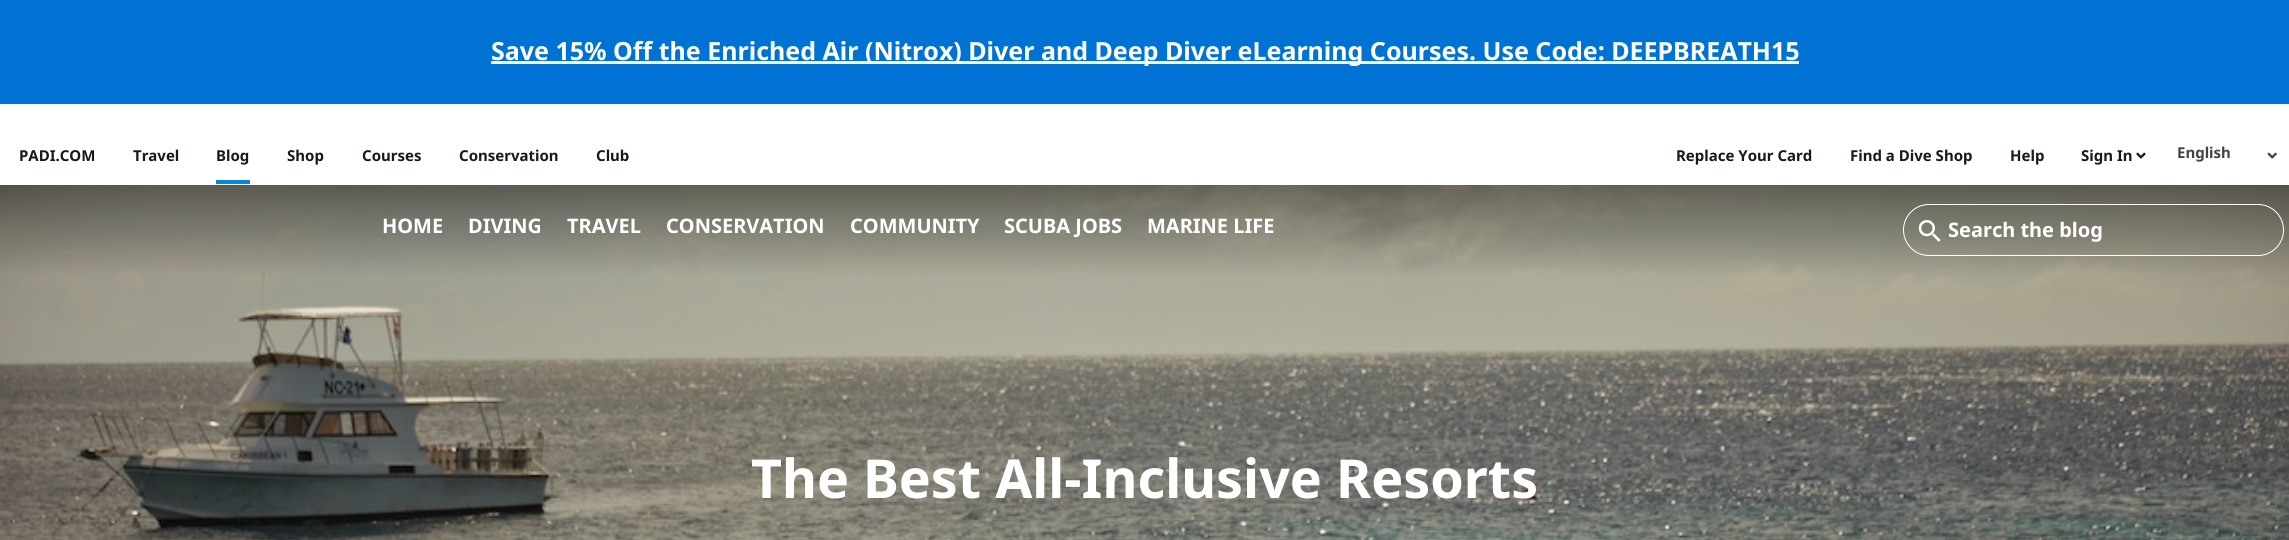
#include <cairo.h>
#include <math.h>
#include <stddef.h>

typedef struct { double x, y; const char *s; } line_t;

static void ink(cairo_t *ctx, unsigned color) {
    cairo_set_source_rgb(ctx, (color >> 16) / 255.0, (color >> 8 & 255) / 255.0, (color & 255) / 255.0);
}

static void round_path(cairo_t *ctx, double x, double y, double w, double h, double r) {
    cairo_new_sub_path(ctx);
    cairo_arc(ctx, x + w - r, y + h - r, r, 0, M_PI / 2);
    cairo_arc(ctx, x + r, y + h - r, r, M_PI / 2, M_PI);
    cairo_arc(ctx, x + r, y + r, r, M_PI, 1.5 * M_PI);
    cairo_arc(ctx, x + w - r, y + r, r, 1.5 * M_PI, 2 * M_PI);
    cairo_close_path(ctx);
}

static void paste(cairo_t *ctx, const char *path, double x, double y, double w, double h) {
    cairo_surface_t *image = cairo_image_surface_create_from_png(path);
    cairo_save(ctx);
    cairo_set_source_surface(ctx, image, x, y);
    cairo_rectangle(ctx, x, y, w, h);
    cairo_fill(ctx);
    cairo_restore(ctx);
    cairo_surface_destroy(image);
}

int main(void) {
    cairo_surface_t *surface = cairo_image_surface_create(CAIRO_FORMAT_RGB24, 2289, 540);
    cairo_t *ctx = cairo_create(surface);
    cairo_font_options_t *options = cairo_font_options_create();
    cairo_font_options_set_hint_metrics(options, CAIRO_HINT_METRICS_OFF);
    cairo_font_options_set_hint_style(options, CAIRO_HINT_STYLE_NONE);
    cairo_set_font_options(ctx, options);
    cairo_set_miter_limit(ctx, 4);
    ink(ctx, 0xFFFFFF);
    cairo_paint(ctx);
    ink(ctx, 0x0072D3);
    cairo_rectangle(ctx, 0, 0, 2289, 104);
    cairo_fill(ctx);
    ink(ctx, 0xFFFFFF);
    cairo_rectangle(ctx, 491, 61, 1308, 3);
    cairo_fill(ctx);
    cairo_select_font_face(ctx, "Noto Sans", CAIRO_FONT_SLANT_NORMAL, CAIRO_FONT_WEIGHT_BOLD);
    cairo_set_font_size(ctx, 25);
    cairo_move_to(ctx, 491, 60);
    cairo_show_text(ctx, "Save 15% Off the Enriched Air (Nitrox) Diver and Deep Diver eLearning Courses. Use Code: DEEPBREATH15");
    cairo_set_font_size(ctx, 15);
    ink(ctx, 0x181B1C);
    cairo_move_to(ctx, 19, 161);
    cairo_show_text(ctx, "PADI.COM");
    cairo_move_to(ctx, 133, 161);
    cairo_show_text(ctx, "Travel");
    ink(ctx, 0x0088DC);
    cairo_rectangle(ctx, 216, 180, 34, 4);
    cairo_fill(ctx);
    ink(ctx, 0x181B1C);
    {
        static const line_t items[] = {
            {216, 161, "Blog"},
            {287, 161, "Shop"},
            {362, 161, "Courses"},
            {459, 161, "Conservation"},
            {596, 161, "Club"},
            {1676, 161, "Replace Your Card"},
            {1850, 161, "Find a Dive Shop"},
            {2010, 161, "Help"},
            {2081, 161, "Sign In"},
        };
        for (size_t i = 0; i < sizeof items / sizeof *items; i++) {
            cairo_move_to(ctx, items[i].x, items[i].y);
            cairo_show_text(ctx, items[i].s);
        }
    }
    paste(ctx, "media/1.png", 2136, 152, 10, 7);
    ink(ctx, 0x444444);
    cairo_move_to(ctx, 2177, 158);
    cairo_show_text(ctx, "English");
    paste(ctx, "media/2.png", 2267, 152, 10, 7);
    paste(ctx, "media/4.png", 0, 185, 2289, 355);
    cairo_set_font_size(ctx, 20);
    ink(ctx, 0xFFFFFF);
    {
        static const line_t items[] = {
            {382, 233, "HOME"},
            {468, 233, "DIVING"},
            {567, 233, "TRAVEL"},
            {666, 233, "CONSERVATION"},
            {850, 233, "COMMUNITY"},
            {1004, 233, "SCUBA JOBS"},
            {1147, 233, "MARINE LIFE"},
        };
        for (size_t i = 0; i < sizeof items / sizeof *items; i++) {
            cairo_move_to(ctx, items[i].x, items[i].y);
            cairo_show_text(ctx, items[i].s);
        }
    }
    paste(ctx, "media/3.png", 1918, 220, 23, 22);
    round_path(ctx, 1903.5, 204.5, 380, 51, 25.5);
    cairo_set_line_width(ctx, 1);
    cairo_stroke(ctx);
    cairo_move_to(ctx, 1948, 237);
    cairo_show_text(ctx, "Search the blog");
    cairo_set_font_size(ctx, 53.75);
    cairo_move_to(ctx, 751, 498);
    cairo_show_text(ctx, "The Best All-Inclusive Resorts");
    cairo_surface_write_to_png(surface, "image.png");
    cairo_font_options_destroy(options);
    cairo_destroy(ctx);
    cairo_surface_destroy(surface);
    return 0;
}
